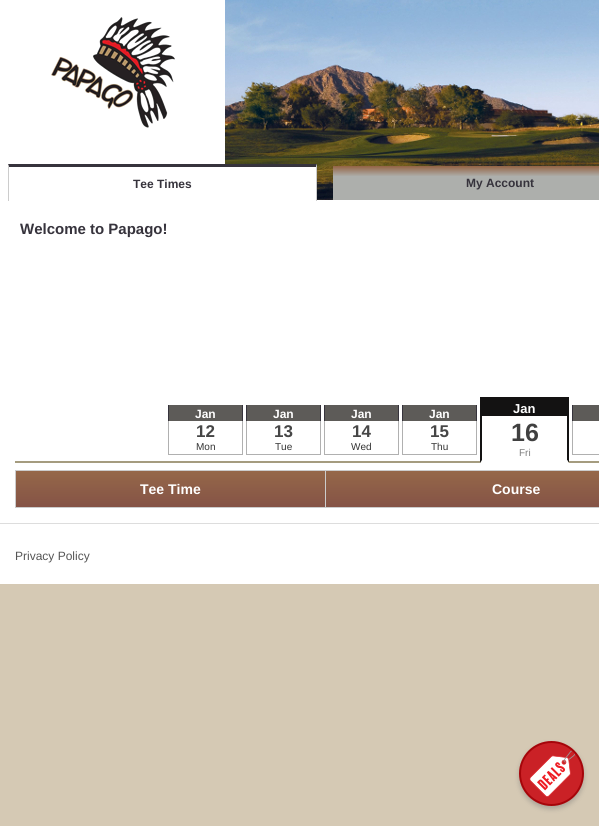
#include <cairo.h>
#include <math.h>
#include <stddef.h>

typedef struct { double x, y, w, h; unsigned color; } box_t;

static void ink(cairo_t *ctx, unsigned color) {
    cairo_set_source_rgb(ctx, (color >> 16) / 255.0, (color >> 8 & 255) / 255.0, (color & 255) / 255.0);
}

static void round_path(cairo_t *ctx, double x, double y, double w, double h, double r) {
    cairo_new_sub_path(ctx);
    cairo_arc(ctx, x + w - r, y + h - r, r, 0, M_PI / 2);
    cairo_arc(ctx, x + r, y + h - r, r, M_PI / 2, M_PI);
    cairo_arc(ctx, x + r, y + r, r, M_PI, 1.5 * M_PI);
    cairo_arc(ctx, x + w - r, y + r, r, 1.5 * M_PI, 2 * M_PI);
    cairo_close_path(ctx);
}

static void blur_box(cairo_t *ctx, double x, double y, double w, double h, double r, double blur, double alpha) {
    cairo_push_group_with_content(ctx, CAIRO_CONTENT_ALPHA);
    cairo_set_operator(ctx, CAIRO_OPERATOR_SOURCE);
    for (int i = 15; i >= -15 && fmin(w, h) + blur * i / 3 > 0; i -= 2) {
        double e = blur * i / 6;
        cairo_set_source_rgba(ctx, 0, 0, 0, alpha * erfc((i - 1) / 8.5) / 2);
        round_path(ctx, x - e, y - e, w + 2 * e, h + 2 * e, fmax(0, fmin(r + e + blur * .6, fmin(w, h) / 2 + e)));
        cairo_fill(ctx);
    }
    cairo_pattern_t *soft = cairo_pop_group(ctx);
    cairo_mask(ctx, soft);
    cairo_pattern_destroy(soft);
}

static void paste(cairo_t *ctx, const char *path, double x, double y, double w, double h) {
    cairo_surface_t *image = cairo_image_surface_create_from_png(path);
    cairo_save(ctx);
    cairo_set_source_surface(ctx, image, x, y);
    cairo_rectangle(ctx, x, y, w, h);
    cairo_fill(ctx);
    cairo_restore(ctx);
    cairo_surface_destroy(image);
}

int main(void) {
    cairo_surface_t *surface = cairo_image_surface_create(CAIRO_FORMAT_RGB24, 599, 826);
    cairo_t *ctx = cairo_create(surface);
    cairo_font_options_t *options = cairo_font_options_create();
    cairo_font_options_set_hint_metrics(options, CAIRO_HINT_METRICS_OFF);
    cairo_font_options_set_hint_style(options, CAIRO_HINT_STYLE_NONE);
    cairo_set_font_options(ctx, options);
    cairo_set_miter_limit(ctx, 4);
    ink(ctx, 0xD5C9B4);
    cairo_paint(ctx);
    ink(ctx, 0xFFFFFF);
    cairo_rectangle(ctx, 0, 0, 599, 584);
    cairo_fill(ctx);
    paste(ctx, "media/1.png", 51, 0, 548, 200);
    cairo_rectangle(ctx, 225, 164, 92, 36);
    cairo_fill(ctx);
    ink(ctx, 0x36333C);
    cairo_new_path(ctx);
    cairo_move_to(ctx, 8, 164);
    cairo_line_to(ctx, 317, 164);
    cairo_line_to(ctx, 316, 167);
    cairo_line_to(ctx, 9, 167);
    cairo_close_path(ctx);
    cairo_fill(ctx);
    ink(ctx, 0xCCCCCC);
    cairo_new_path(ctx);
    cairo_move_to(ctx, 317, 164);
    cairo_line_to(ctx, 317, 201);
    cairo_line_to(ctx, 316, 201);
    cairo_line_to(ctx, 316, 167);
    cairo_close_path(ctx);
    cairo_fill(ctx);
    cairo_new_path(ctx);
    cairo_move_to(ctx, 8, 201);
    cairo_line_to(ctx, 8, 164);
    cairo_line_to(ctx, 9, 167);
    cairo_line_to(ctx, 9, 201);
    cairo_close_path(ctx);
    cairo_fill(ctx);
    cairo_select_font_face(ctx, "Liberation Sans", CAIRO_FONT_SLANT_NORMAL, CAIRO_FONT_WEIGHT_BOLD);
    cairo_set_font_size(ctx, 12);
    ink(ctx, 0x36333C);
    cairo_move_to(ctx, 133, 188);
    cairo_show_text(ctx, "Tee Times");
    paste(ctx, "media/2.png", 333, 166, 266, 34);
    cairo_move_to(ctx, 466, 187);
    cairo_show_text(ctx, "My Account");
    cairo_set_font_size(ctx, 15);
    cairo_move_to(ctx, 20, 234);
    cairo_show_text(ctx, "Welcome to Papago!");
    {
        static const box_t items[] = {
            {15, 461, 584, 2, 0xA59C7F},
            {169, 405, 73, 16, 0x5D5B58},
            {242, 405, 1, 16, 0x36333C},
            {168, 405, 1, 16, 0x36333C},
        };
        for (size_t i = 0; i < sizeof items / sizeof *items; i++) {
            ink(ctx, items[i].color);
            cairo_rectangle(ctx, items[i].x, items[i].y, items[i].w, items[i].h);
            cairo_fill(ctx);
        }
    }
    cairo_set_font_size(ctx, 12);
    ink(ctx, 0xFFFFFF);
    cairo_move_to(ctx, 195, 418);
    cairo_show_text(ctx, "Jan");
    ink(ctx, 0xB0B0B0);
    cairo_rectangle(ctx, 242, 421, 1, 34);
    cairo_fill(ctx);
    cairo_rectangle(ctx, 168, 421, 1, 22);
    cairo_fill(ctx);
    cairo_set_font_size(ctx, 17);
    ink(ctx, 0x464646);
    cairo_move_to(ctx, 196, 437);
    cairo_show_text(ctx, "12");
    ink(ctx, 0xB0B0B0);
    cairo_rectangle(ctx, 168, 454, 75, 1);
    cairo_fill(ctx);
    cairo_rectangle(ctx, 168, 443, 1, 12);
    cairo_fill(ctx);
    cairo_select_font_face(ctx, "Liberation Sans", CAIRO_FONT_SLANT_NORMAL, CAIRO_FONT_WEIGHT_NORMAL);
    cairo_set_font_size(ctx, 10);
    ink(ctx, 0x333333);
    cairo_move_to(ctx, 196, 450);
    cairo_show_text(ctx, "Mon");
    {
        static const box_t items[] = {
            {247, 405, 73, 16, 0x5D5B58},
            {320, 405, 1, 16, 0x36333C},
            {246, 405, 1, 16, 0x36333C},
        };
        for (size_t i = 0; i < sizeof items / sizeof *items; i++) {
            ink(ctx, items[i].color);
            cairo_rectangle(ctx, items[i].x, items[i].y, items[i].w, items[i].h);
            cairo_fill(ctx);
        }
    }
    cairo_select_font_face(ctx, "Liberation Sans", CAIRO_FONT_SLANT_NORMAL, CAIRO_FONT_WEIGHT_BOLD);
    cairo_set_font_size(ctx, 12);
    ink(ctx, 0xFFFFFF);
    cairo_move_to(ctx, 273, 418);
    cairo_show_text(ctx, "Jan");
    ink(ctx, 0xB0B0B0);
    cairo_rectangle(ctx, 320, 421, 1, 34);
    cairo_fill(ctx);
    cairo_rectangle(ctx, 246, 421, 1, 22);
    cairo_fill(ctx);
    cairo_set_font_size(ctx, 17);
    ink(ctx, 0x464646);
    cairo_move_to(ctx, 274, 437);
    cairo_show_text(ctx, "13");
    ink(ctx, 0xB0B0B0);
    cairo_rectangle(ctx, 246, 454, 75, 1);
    cairo_fill(ctx);
    cairo_rectangle(ctx, 246, 443, 1, 12);
    cairo_fill(ctx);
    cairo_select_font_face(ctx, "Liberation Sans", CAIRO_FONT_SLANT_NORMAL, CAIRO_FONT_WEIGHT_NORMAL);
    cairo_set_font_size(ctx, 10);
    ink(ctx, 0x333333);
    cairo_move_to(ctx, 275, 450);
    cairo_show_text(ctx, "Tue");
    {
        static const box_t items[] = {
            {325, 405, 73, 16, 0x5D5B58},
            {398, 405, 1, 16, 0x36333C},
            {324, 405, 1, 16, 0x36333C},
        };
        for (size_t i = 0; i < sizeof items / sizeof *items; i++) {
            ink(ctx, items[i].color);
            cairo_rectangle(ctx, items[i].x, items[i].y, items[i].w, items[i].h);
            cairo_fill(ctx);
        }
    }
    cairo_select_font_face(ctx, "Liberation Sans", CAIRO_FONT_SLANT_NORMAL, CAIRO_FONT_WEIGHT_BOLD);
    cairo_set_font_size(ctx, 12);
    ink(ctx, 0xFFFFFF);
    cairo_move_to(ctx, 351, 418);
    cairo_show_text(ctx, "Jan");
    ink(ctx, 0xB0B0B0);
    cairo_rectangle(ctx, 398, 421, 1, 34);
    cairo_fill(ctx);
    cairo_rectangle(ctx, 324, 421, 1, 22);
    cairo_fill(ctx);
    cairo_set_font_size(ctx, 17);
    ink(ctx, 0x464646);
    cairo_move_to(ctx, 352, 437);
    cairo_show_text(ctx, "14");
    ink(ctx, 0xB0B0B0);
    cairo_rectangle(ctx, 324, 454, 75, 1);
    cairo_fill(ctx);
    cairo_rectangle(ctx, 324, 443, 1, 12);
    cairo_fill(ctx);
    cairo_select_font_face(ctx, "Liberation Sans", CAIRO_FONT_SLANT_NORMAL, CAIRO_FONT_WEIGHT_NORMAL);
    cairo_set_font_size(ctx, 10);
    ink(ctx, 0x333333);
    cairo_move_to(ctx, 351, 450);
    cairo_show_text(ctx, "Wed");
    {
        static const box_t items[] = {
            {403, 405, 73, 16, 0x5D5B58},
            {476, 405, 1, 16, 0x36333C},
            {402, 405, 1, 16, 0x36333C},
        };
        for (size_t i = 0; i < sizeof items / sizeof *items; i++) {
            ink(ctx, items[i].color);
            cairo_rectangle(ctx, items[i].x, items[i].y, items[i].w, items[i].h);
            cairo_fill(ctx);
        }
    }
    cairo_select_font_face(ctx, "Liberation Sans", CAIRO_FONT_SLANT_NORMAL, CAIRO_FONT_WEIGHT_BOLD);
    cairo_set_font_size(ctx, 12);
    ink(ctx, 0xFFFFFF);
    cairo_move_to(ctx, 429, 418);
    cairo_show_text(ctx, "Jan");
    ink(ctx, 0xB0B0B0);
    cairo_rectangle(ctx, 476, 421, 1, 34);
    cairo_fill(ctx);
    cairo_rectangle(ctx, 402, 421, 1, 22);
    cairo_fill(ctx);
    cairo_set_font_size(ctx, 17);
    ink(ctx, 0x464646);
    cairo_move_to(ctx, 430, 437);
    cairo_show_text(ctx, "15");
    ink(ctx, 0xB0B0B0);
    cairo_rectangle(ctx, 402, 454, 75, 1);
    cairo_fill(ctx);
    cairo_rectangle(ctx, 402, 443, 1, 12);
    cairo_fill(ctx);
    cairo_select_font_face(ctx, "Liberation Sans", CAIRO_FONT_SLANT_NORMAL, CAIRO_FONT_WEIGHT_NORMAL);
    cairo_set_font_size(ctx, 10);
    ink(ctx, 0x333333);
    cairo_move_to(ctx, 431, 450);
    cairo_show_text(ctx, "Thu");
    ink(ctx, 0x131212);
    cairo_rectangle(ctx, 480, 397, 89, 2);
    cairo_fill(ctx);
    cairo_new_path(ctx);
    cairo_move_to(ctx, 569, 397);
    cairo_line_to(ctx, 569, 463);
    cairo_line_to(ctx, 567, 460);
    cairo_line_to(ctx, 567, 399);
    cairo_close_path(ctx);
    cairo_fill(ctx);
    ink(ctx, 0xFFFFFF);
    cairo_new_path(ctx);
    cairo_move_to(ctx, 569, 463);
    cairo_line_to(ctx, 480, 463);
    cairo_line_to(ctx, 482, 460);
    cairo_line_to(ctx, 567, 460);
    cairo_close_path(ctx);
    cairo_fill(ctx);
    ink(ctx, 0x131212);
    cairo_new_path(ctx);
    cairo_move_to(ctx, 480, 463);
    cairo_line_to(ctx, 480, 397);
    cairo_line_to(ctx, 482, 399);
    cairo_line_to(ctx, 482, 460);
    cairo_close_path(ctx);
    cairo_fill(ctx);
    cairo_rectangle(ctx, 482, 399, 85, 17);
    cairo_fill(ctx);
    cairo_select_font_face(ctx, "Liberation Sans", CAIRO_FONT_SLANT_NORMAL, CAIRO_FONT_WEIGHT_BOLD);
    cairo_set_font_size(ctx, 13);
    ink(ctx, 0xFFFFFF);
    cairo_move_to(ctx, 513, 413);
    cairo_show_text(ctx, "Jan");
    cairo_set_font_size(ctx, 25);
    ink(ctx, 0x404040);
    cairo_move_to(ctx, 511, 441);
    cairo_show_text(ctx, "16");
    cairo_select_font_face(ctx, "Liberation Sans", CAIRO_FONT_SLANT_NORMAL, CAIRO_FONT_WEIGHT_NORMAL);
    cairo_set_font_size(ctx, 10);
    ink(ctx, 0x808080);
    cairo_move_to(ctx, 519, 456);
    cairo_show_text(ctx, "Fri");
    {
        static const box_t items[] = {
            {573, 405, 26, 16, 0x5D5B58},
            {572, 405, 1, 16, 0x36333C},
            {572, 421, 1, 22, 0xB0B0B0},
            {572, 454, 27, 1, 0xB0B0B0},
            {572, 443, 1, 12, 0xB0B0B0},
            {15, 470, 584, 1, 0xCCCCCC},
            {15, 507, 584, 1, 0xCCCCCC},
            {15, 470, 1, 38, 0xCCCCCC},
        };
        for (size_t i = 0; i < sizeof items / sizeof *items; i++) {
            ink(ctx, items[i].color);
            cairo_rectangle(ctx, items[i].x, items[i].y, items[i].w, items[i].h);
            cairo_fill(ctx);
        }
    }
    paste(ctx, "media/3.png", 16, 471, 309, 36);
    cairo_select_font_face(ctx, "Liberation Sans", CAIRO_FONT_SLANT_NORMAL, CAIRO_FONT_WEIGHT_BOLD);
    cairo_set_font_size(ctx, 14);
    ink(ctx, 0xFFFFFF);
    cairo_move_to(ctx, 140, 494);
    cairo_show_text(ctx, "Tee Time");
    paste(ctx, "media/4.png", 326, 471, 273, 36);
    ink(ctx, 0xCCCCCC);
    cairo_rectangle(ctx, 325, 470, 1, 38);
    cairo_fill(ctx);
    ink(ctx, 0xFFFFFF);
    cairo_move_to(ctx, 492, 494);
    cairo_show_text(ctx, "Course");
    ink(ctx, 0xDDDDDD);
    cairo_rectangle(ctx, 0, 523, 599, 1);
    cairo_fill(ctx);
    cairo_select_font_face(ctx, "Liberation Sans", CAIRO_FONT_SLANT_NORMAL, CAIRO_FONT_WEIGHT_NORMAL);
    cairo_set_font_size(ctx, 12);
    ink(ctx, 0x555555);
    cairo_move_to(ctx, 15, 560);
    cairo_show_text(ctx, "Privacy Policy");
    ink(ctx, 0x474B56);
    blur_box(ctx, 519, 744, 65, 65, 32.5, 2.5, 0.3);
    ink(ctx, 0xCA2126);
    cairo_arc(ctx, 551.5, 773.5, 31.5, 0, 2 * M_PI);
    cairo_fill_preserve(ctx);
    ink(ctx, 0xA6050A);
    cairo_stroke(ctx);
    paste(ctx, "media/5.png", 529, 750, 46, 47);
    cairo_surface_write_to_png(surface, "image.png");
    cairo_font_options_destroy(options);
    cairo_destroy(ctx);
    cairo_surface_destroy(surface);
    return 0;
}
